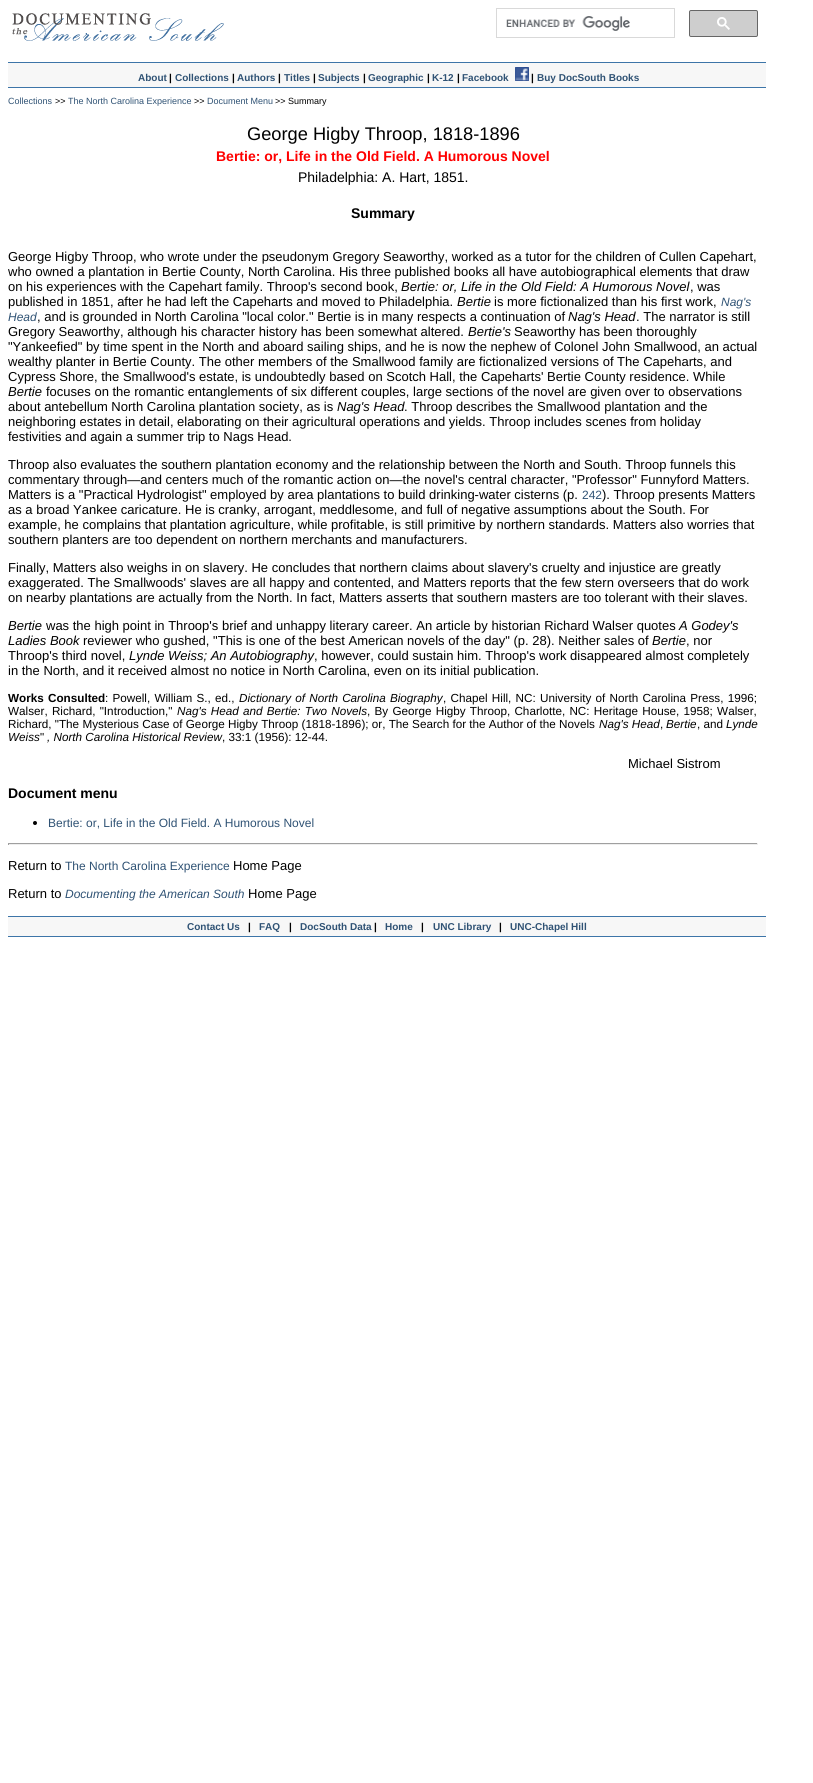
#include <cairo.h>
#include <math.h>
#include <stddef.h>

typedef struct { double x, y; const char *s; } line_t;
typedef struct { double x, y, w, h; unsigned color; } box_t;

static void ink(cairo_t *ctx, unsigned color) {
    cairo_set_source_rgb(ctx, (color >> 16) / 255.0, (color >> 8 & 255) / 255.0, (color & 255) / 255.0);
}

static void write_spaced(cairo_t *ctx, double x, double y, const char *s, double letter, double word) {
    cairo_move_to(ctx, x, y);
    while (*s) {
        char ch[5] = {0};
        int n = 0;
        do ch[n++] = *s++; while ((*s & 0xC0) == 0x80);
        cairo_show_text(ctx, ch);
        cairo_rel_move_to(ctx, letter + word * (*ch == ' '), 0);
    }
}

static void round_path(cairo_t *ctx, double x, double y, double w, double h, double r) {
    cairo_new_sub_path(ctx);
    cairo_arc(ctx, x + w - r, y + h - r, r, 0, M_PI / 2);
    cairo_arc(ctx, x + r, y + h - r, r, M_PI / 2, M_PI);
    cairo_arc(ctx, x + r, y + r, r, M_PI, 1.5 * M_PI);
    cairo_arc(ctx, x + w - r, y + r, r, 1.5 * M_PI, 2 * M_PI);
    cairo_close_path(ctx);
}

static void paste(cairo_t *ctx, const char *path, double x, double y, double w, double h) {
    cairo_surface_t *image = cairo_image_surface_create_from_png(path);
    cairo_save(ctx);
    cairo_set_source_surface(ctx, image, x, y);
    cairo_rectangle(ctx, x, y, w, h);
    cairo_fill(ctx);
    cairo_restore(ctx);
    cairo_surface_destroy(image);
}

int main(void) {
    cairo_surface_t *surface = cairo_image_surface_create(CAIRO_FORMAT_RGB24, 813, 1783);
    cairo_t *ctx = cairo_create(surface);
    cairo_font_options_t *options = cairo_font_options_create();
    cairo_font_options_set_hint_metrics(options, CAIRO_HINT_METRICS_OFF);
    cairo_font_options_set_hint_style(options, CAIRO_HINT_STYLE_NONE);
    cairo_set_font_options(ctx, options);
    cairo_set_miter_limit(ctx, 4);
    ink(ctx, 0xFFFFFF);
    cairo_paint(ctx);
    paste(ctx, "media/1.png", 12, 13, 212, 28);
    cairo_rectangle(ctx, 496.5, 8.5, 178, 29);
    ink(ctx, 0xD9D9D9);
    cairo_set_line_width(ctx, 1);
    cairo_stroke(ctx);
    paste(ctx, "media/2.png", 506, 16, 124, 15);
    ink(ctx, 0xCECECE);
    round_path(ctx, 689.5, 10.5, 68, 26, 1.5);
    cairo_fill_preserve(ctx);
    ink(ctx, 0x666666);
    cairo_stroke(ctx);
    paste(ctx, "media/3.png", 717, 17, 13, 13);
    {
        static const box_t items[] = {
            {8, 63, 758, 24, 0xF7F7F7},
            {8, 62, 758, 1, 0x3D75A8},
            {8, 87, 758, 1, 0x3D75A8},
        };
        for (size_t i = 0; i < sizeof items / sizeof *items; i++) {
            ink(ctx, items[i].color);
            cairo_rectangle(ctx, items[i].x, items[i].y, items[i].w, items[i].h);
            cairo_fill(ctx);
        }
    }
    cairo_select_font_face(ctx, "Liberation Sans", CAIRO_FONT_SLANT_NORMAL, CAIRO_FONT_WEIGHT_BOLD);
    cairo_set_font_size(ctx, 10);
    ink(ctx, 0x2F5274);
    cairo_move_to(ctx, 138, 81);
    cairo_show_text(ctx, "About");
    ink(ctx, 0x000000);
    cairo_move_to(ctx, 169, 81);
    cairo_show_text(ctx, "|");
    ink(ctx, 0x2F5274);
    cairo_move_to(ctx, 175, 81);
    cairo_show_text(ctx, "Collections");
    ink(ctx, 0x000000);
    cairo_move_to(ctx, 232, 81);
    cairo_show_text(ctx, "|");
    ink(ctx, 0x2F5274);
    cairo_move_to(ctx, 237, 81);
    cairo_show_text(ctx, "Authors");
    ink(ctx, 0x000000);
    cairo_move_to(ctx, 278, 81);
    cairo_show_text(ctx, "|");
    ink(ctx, 0x2F5274);
    cairo_move_to(ctx, 284, 81);
    cairo_show_text(ctx, "Titles");
    ink(ctx, 0x000000);
    cairo_move_to(ctx, 313, 81);
    cairo_show_text(ctx, "|");
    ink(ctx, 0x2F5274);
    cairo_move_to(ctx, 318, 81);
    cairo_show_text(ctx, "Subjects");
    ink(ctx, 0x000000);
    cairo_move_to(ctx, 363, 81);
    cairo_show_text(ctx, "|");
    ink(ctx, 0x2F5274);
    cairo_move_to(ctx, 368, 81);
    cairo_show_text(ctx, "Geographic");
    ink(ctx, 0x000000);
    cairo_move_to(ctx, 427, 81);
    cairo_show_text(ctx, "|");
    ink(ctx, 0x2F5274);
    cairo_move_to(ctx, 432, 81);
    cairo_show_text(ctx, "K-12");
    ink(ctx, 0x000000);
    cairo_move_to(ctx, 457, 81);
    cairo_show_text(ctx, "|");
    ink(ctx, 0x2F5274);
    cairo_move_to(ctx, 462, 81);
    cairo_show_text(ctx, "Facebook");
    paste(ctx, "media/4.png", 515, 67, 14, 14);
    ink(ctx, 0x000000);
    cairo_move_to(ctx, 531, 81);
    cairo_show_text(ctx, "|");
    ink(ctx, 0x2F5274);
    cairo_move_to(ctx, 537, 81);
    cairo_show_text(ctx, "Buy DocSouth Books");
    cairo_select_font_face(ctx, "Liberation Sans", CAIRO_FONT_SLANT_NORMAL, CAIRO_FONT_WEIGHT_NORMAL);
    cairo_set_font_size(ctx, 9);
    cairo_move_to(ctx, 8, 104);
    cairo_show_text(ctx, "Collections");
    ink(ctx, 0x000000);
    cairo_move_to(ctx, 55, 104);
    cairo_show_text(ctx, ">>");
    ink(ctx, 0x2F5274);
    cairo_move_to(ctx, 68, 104);
    cairo_show_text(ctx, "The North Carolina Experience");
    ink(ctx, 0x000000);
    cairo_move_to(ctx, 194, 104);
    cairo_show_text(ctx, ">>");
    ink(ctx, 0x2F5274);
    cairo_move_to(ctx, 207, 104);
    cairo_show_text(ctx, "Document Menu");
    ink(ctx, 0x000000);
    cairo_move_to(ctx, 275, 104);
    cairo_show_text(ctx, ">> Summary");
    cairo_set_font_size(ctx, 18.25);
    cairo_move_to(ctx, 247, 140);
    cairo_show_text(ctx, "George Higby Throop, 1818-1896");
    cairo_select_font_face(ctx, "Liberation Sans", CAIRO_FONT_SLANT_NORMAL, CAIRO_FONT_WEIGHT_BOLD);
    cairo_set_font_size(ctx, 14);
    ink(ctx, 0xFF0000);
    cairo_move_to(ctx, 216, 161);
    cairo_show_text(ctx, "Bertie: or, Life in the Old Field. A Humorous Novel");
    cairo_select_font_face(ctx, "Liberation Sans", CAIRO_FONT_SLANT_NORMAL, CAIRO_FONT_WEIGHT_NORMAL);
    ink(ctx, 0x000000);
    cairo_move_to(ctx, 298, 182);
    cairo_show_text(ctx, "Philadelphia: A. Hart, 1851.");
    cairo_select_font_face(ctx, "Liberation Sans", CAIRO_FONT_SLANT_NORMAL, CAIRO_FONT_WEIGHT_BOLD);
    cairo_move_to(ctx, 351, 218);
    cairo_show_text(ctx, "Summary");
    cairo_select_font_face(ctx, "Liberation Sans", CAIRO_FONT_SLANT_NORMAL, CAIRO_FONT_WEIGHT_NORMAL);
    cairo_set_font_size(ctx, 13);
    {
        static const line_t items[] = {
            {8, 261, "George Higby Throop, who wrote under the pseudonym Gregory Seaworthy, worked as a tutor for the children of Cullen Capehart,"},
            {8, 276, "who owned a plantation in Bertie County, North Carolina. His three published books all have autobiographical elements that draw"},
            {8, 291, "on his experiences with the Capehart family. Throop's second book,"},
        };
        for (size_t i = 0; i < sizeof items / sizeof *items; i++) {
            cairo_move_to(ctx, items[i].x, items[i].y);
            cairo_show_text(ctx, items[i].s);
        }
    }
    cairo_select_font_face(ctx, "Liberation Sans", CAIRO_FONT_SLANT_ITALIC, CAIRO_FONT_WEIGHT_NORMAL);
    cairo_move_to(ctx, 401, 291);
    cairo_show_text(ctx, "Bertie: or, Life in the Old Field: A Humorous Novel");
    cairo_select_font_face(ctx, "Liberation Sans", CAIRO_FONT_SLANT_NORMAL, CAIRO_FONT_WEIGHT_NORMAL);
    cairo_move_to(ctx, 690, 291);
    cairo_show_text(ctx, ", was");
    cairo_move_to(ctx, 8, 306);
    cairo_show_text(ctx, "published in 1851, after he had left the Capeharts and moved to Philadelphia.");
    cairo_select_font_face(ctx, "Liberation Sans", CAIRO_FONT_SLANT_ITALIC, CAIRO_FONT_WEIGHT_NORMAL);
    cairo_move_to(ctx, 457, 306);
    cairo_show_text(ctx, "Bertie");
    cairo_select_font_face(ctx, "Liberation Sans", CAIRO_FONT_SLANT_NORMAL, CAIRO_FONT_WEIGHT_NORMAL);
    cairo_move_to(ctx, 494, 306);
    cairo_show_text(ctx, "is more fictionalized than his first work,");
    cairo_select_font_face(ctx, "Liberation Sans", CAIRO_FONT_SLANT_ITALIC, CAIRO_FONT_WEIGHT_NORMAL);
    cairo_set_font_size(ctx, 12);
    ink(ctx, 0x2F5274);
    cairo_move_to(ctx, 721, 306);
    cairo_show_text(ctx, "Nag's");
    cairo_move_to(ctx, 8, 321);
    cairo_show_text(ctx, "Head");
    cairo_select_font_face(ctx, "Liberation Sans", CAIRO_FONT_SLANT_NORMAL, CAIRO_FONT_WEIGHT_NORMAL);
    cairo_set_font_size(ctx, 13);
    ink(ctx, 0x000000);
    cairo_move_to(ctx, 37, 321);
    cairo_show_text(ctx, ", and is grounded in North Carolina \"local color.\" Bertie is in many respects a continuation of");
    cairo_select_font_face(ctx, "Liberation Sans", CAIRO_FONT_SLANT_ITALIC, CAIRO_FONT_WEIGHT_NORMAL);
    cairo_move_to(ctx, 568, 321);
    cairo_show_text(ctx, "Nag's Head");
    cairo_select_font_face(ctx, "Liberation Sans", CAIRO_FONT_SLANT_NORMAL, CAIRO_FONT_WEIGHT_NORMAL);
    cairo_move_to(ctx, 636, 321);
    cairo_show_text(ctx, ". The narrator is still");
    cairo_move_to(ctx, 8, 336);
    cairo_show_text(ctx, "Gregory Seaworthy, although his character history has been somewhat altered.");
    cairo_select_font_face(ctx, "Liberation Sans", CAIRO_FONT_SLANT_ITALIC, CAIRO_FONT_WEIGHT_NORMAL);
    cairo_move_to(ctx, 468, 336);
    cairo_show_text(ctx, "Bertie's");
    cairo_select_font_face(ctx, "Liberation Sans", CAIRO_FONT_SLANT_NORMAL, CAIRO_FONT_WEIGHT_NORMAL);
    {
        static const line_t items[] = {
            {514, 336, "Seaworthy has been thoroughly"},
            {8, 351, "\"Yankeefied\" by time spent in the North and aboard sailing ships, and he is now the nephew of Colonel John Smallwood, an actual"},
            {8, 366, "wealthy planter in Bertie County. The other members of the Smallwood family are fictionalized versions of The Capeharts, and"},
            {8, 381, "Cypress Shore, the Smallwood's estate, is undoubtedly based on Scotch Hall, the Capeharts' Bertie County residence. While"},
        };
        for (size_t i = 0; i < sizeof items / sizeof *items; i++) {
            cairo_move_to(ctx, items[i].x, items[i].y);
            cairo_show_text(ctx, items[i].s);
        }
    }
    cairo_select_font_face(ctx, "Liberation Sans", CAIRO_FONT_SLANT_ITALIC, CAIRO_FONT_WEIGHT_NORMAL);
    cairo_move_to(ctx, 8, 396);
    cairo_show_text(ctx, "Bertie");
    cairo_select_font_face(ctx, "Liberation Sans", CAIRO_FONT_SLANT_NORMAL, CAIRO_FONT_WEIGHT_NORMAL);
    cairo_move_to(ctx, 46, 396);
    cairo_show_text(ctx, "focuses on the romantic entanglements of six different couples, large sections of the novel are given over to observations");
    cairo_move_to(ctx, 8, 411);
    cairo_show_text(ctx, "about antebellum North Carolina plantation society, as is");
    cairo_select_font_face(ctx, "Liberation Sans", CAIRO_FONT_SLANT_ITALIC, CAIRO_FONT_WEIGHT_NORMAL);
    cairo_move_to(ctx, 337, 411);
    cairo_show_text(ctx, "Nag's Head");
    cairo_select_font_face(ctx, "Liberation Sans", CAIRO_FONT_SLANT_NORMAL, CAIRO_FONT_WEIGHT_NORMAL);
    {
        static const line_t items[] = {
            {404, 411, ". Throop describes the Smallwood plantation and the"},
            {8, 426, "neighboring estates in detail, elaborating on their agricultural operations and yields. Throop includes scenes from holiday"},
            {8, 441, "festivities and again a summer trip to Nags Head."},
            {8, 469, "Throop also evaluates the southern plantation economy and the relationship between the North and South. Throop funnels this"},
            {8, 484, "commentary through—and centers much of the romantic action on—the novel's central character, \"Professor\" Funnyford Matters."},
            {8, 499, "Matters is a \"Practical Hydrologist\" employed by area plantations to build drinking-water cisterns (p."},
        };
        for (size_t i = 0; i < sizeof items / sizeof *items; i++) {
            cairo_move_to(ctx, items[i].x, items[i].y);
            cairo_show_text(ctx, items[i].s);
        }
    }
    cairo_set_font_size(ctx, 12);
    ink(ctx, 0x2F5274);
    cairo_move_to(ctx, 582, 499);
    cairo_show_text(ctx, "242");
    cairo_set_font_size(ctx, 13);
    ink(ctx, 0x000000);
    {
        static const line_t items[] = {
            {602, 499, "). Throop presents Matters"},
            {8, 514, "as a broad Yankee caricature. He is cranky, arrogant, meddlesome, and full of negative assumptions about the South. For"},
            {8, 529, "example, he complains that plantation agriculture, while profitable, is still primitive by northern standards. Matters also worries that"},
            {8, 544, "southern planters are too dependent on northern merchants and manufacturers."},
            {8, 572, "Finally, Matters also weighs in on slavery. He concludes that northern claims about slavery's cruelty and injustice are greatly"},
            {8, 587, "exaggerated. The Smallwoods' slaves are all happy and contented, and Matters reports that the few stern overseers that do work"},
            {8, 602, "on nearby plantations are actually from the North. In fact, Matters asserts that southern masters are too tolerant with their slaves."},
        };
        for (size_t i = 0; i < sizeof items / sizeof *items; i++) {
            cairo_move_to(ctx, items[i].x, items[i].y);
            cairo_show_text(ctx, items[i].s);
        }
    }
    cairo_select_font_face(ctx, "Liberation Sans", CAIRO_FONT_SLANT_ITALIC, CAIRO_FONT_WEIGHT_NORMAL);
    cairo_move_to(ctx, 8, 630);
    cairo_show_text(ctx, "Bertie");
    cairo_select_font_face(ctx, "Liberation Sans", CAIRO_FONT_SLANT_NORMAL, CAIRO_FONT_WEIGHT_NORMAL);
    cairo_move_to(ctx, 46, 630);
    cairo_show_text(ctx, "was the high point in Throop's brief and unhappy literary career. An article by historian Richard Walser quotes");
    cairo_select_font_face(ctx, "Liberation Sans", CAIRO_FONT_SLANT_ITALIC, CAIRO_FONT_WEIGHT_NORMAL);
    cairo_move_to(ctx, 679, 630);
    cairo_show_text(ctx, "A Godey's");
    cairo_move_to(ctx, 8, 645);
    cairo_show_text(ctx, "Ladies Book");
    cairo_select_font_face(ctx, "Liberation Sans", CAIRO_FONT_SLANT_NORMAL, CAIRO_FONT_WEIGHT_NORMAL);
    cairo_move_to(ctx, 83, 645);
    cairo_show_text(ctx, "reviewer who gushed, \"This is one of the best American novels of the day\" (p. 28). Neither sales of");
    cairo_select_font_face(ctx, "Liberation Sans", CAIRO_FONT_SLANT_ITALIC, CAIRO_FONT_WEIGHT_NORMAL);
    cairo_move_to(ctx, 652, 645);
    cairo_show_text(ctx, "Bertie");
    cairo_select_font_face(ctx, "Liberation Sans", CAIRO_FONT_SLANT_NORMAL, CAIRO_FONT_WEIGHT_NORMAL);
    cairo_move_to(ctx, 686, 645);
    cairo_show_text(ctx, ", nor");
    cairo_move_to(ctx, 8, 660);
    cairo_show_text(ctx, "Throop's third novel,");
    cairo_select_font_face(ctx, "Liberation Sans", CAIRO_FONT_SLANT_ITALIC, CAIRO_FONT_WEIGHT_NORMAL);
    cairo_move_to(ctx, 129, 660);
    cairo_show_text(ctx, "Lynde Weiss; An Autobiography");
    cairo_select_font_face(ctx, "Liberation Sans", CAIRO_FONT_SLANT_NORMAL, CAIRO_FONT_WEIGHT_NORMAL);
    cairo_move_to(ctx, 314, 660);
    cairo_show_text(ctx, ", however, could sustain him. Throop's work disappeared almost completely");
    cairo_move_to(ctx, 8, 675);
    cairo_show_text(ctx, "in the North, and it received almost no notice in North Carolina, even on its initial publication.");
    cairo_select_font_face(ctx, "Liberation Sans", CAIRO_FONT_SLANT_NORMAL, CAIRO_FONT_WEIGHT_BOLD);
    cairo_set_font_size(ctx, 11.7);
    write_spaced(ctx, 8, 702, "Works Consulted", 0, 1);
    cairo_select_font_face(ctx, "Liberation Sans", CAIRO_FONT_SLANT_NORMAL, CAIRO_FONT_WEIGHT_NORMAL);
    write_spaced(ctx, 105, 702, ": Powell, William S., ed.,", 0, 1);
    cairo_select_font_face(ctx, "Liberation Sans", CAIRO_FONT_SLANT_ITALIC, CAIRO_FONT_WEIGHT_NORMAL);
    write_spaced(ctx, 239, 702, "Dictionary of North Carolina Biography", 0, 1);
    cairo_select_font_face(ctx, "Liberation Sans", CAIRO_FONT_SLANT_NORMAL, CAIRO_FONT_WEIGHT_NORMAL);
    write_spaced(ctx, 443, 702, ", Chapel Hill, NC: University of North Carolina Press, 1996;", 0, 1);
    write_spaced(ctx, 8, 715, "Walser, Richard, \"Introduction,\"", 0, 1);
    cairo_select_font_face(ctx, "Liberation Sans", CAIRO_FONT_SLANT_ITALIC, CAIRO_FONT_WEIGHT_NORMAL);
    write_spaced(ctx, 177, 715, "Nag's Head and Bertie: Two Novels", 0, 1);
    cairo_select_font_face(ctx, "Liberation Sans", CAIRO_FONT_SLANT_NORMAL, CAIRO_FONT_WEIGHT_NORMAL);
    write_spaced(ctx, 367, 715, ", By George Higby Throop, Charlotte, NC: Heritage House, 1958; Walser,", 0, 1);
    cairo_move_to(ctx, 8, 728);
    cairo_show_text(ctx, "Richard, \"The Mysterious Case of George Higby Throop (1818-1896); or, The Search for the Author of the Novels");
    cairo_select_font_face(ctx, "Liberation Sans", CAIRO_FONT_SLANT_ITALIC, CAIRO_FONT_WEIGHT_NORMAL);
    cairo_move_to(ctx, 599, 728);
    cairo_show_text(ctx, "Nag's Head");
    cairo_select_font_face(ctx, "Liberation Sans", CAIRO_FONT_SLANT_NORMAL, CAIRO_FONT_WEIGHT_NORMAL);
    cairo_move_to(ctx, 660, 728);
    cairo_show_text(ctx, ",");
    cairo_select_font_face(ctx, "Liberation Sans", CAIRO_FONT_SLANT_ITALIC, CAIRO_FONT_WEIGHT_NORMAL);
    cairo_move_to(ctx, 666, 728);
    cairo_show_text(ctx, "Bertie");
    cairo_select_font_face(ctx, "Liberation Sans", CAIRO_FONT_SLANT_NORMAL, CAIRO_FONT_WEIGHT_NORMAL);
    cairo_move_to(ctx, 697, 728);
    cairo_show_text(ctx, ", and");
    cairo_select_font_face(ctx, "Liberation Sans", CAIRO_FONT_SLANT_ITALIC, CAIRO_FONT_WEIGHT_NORMAL);
    cairo_move_to(ctx, 726, 728);
    cairo_show_text(ctx, "Lynde");
    cairo_move_to(ctx, 8, 741);
    cairo_show_text(ctx, "Weiss");
    cairo_select_font_face(ctx, "Liberation Sans", CAIRO_FONT_SLANT_NORMAL, CAIRO_FONT_WEIGHT_NORMAL);
    cairo_move_to(ctx, 40, 741);
    cairo_show_text(ctx, "\"");
    cairo_select_font_face(ctx, "Liberation Sans", CAIRO_FONT_SLANT_ITALIC, CAIRO_FONT_WEIGHT_NORMAL);
    cairo_move_to(ctx, 47, 741);
    cairo_show_text(ctx, ", North Carolina Historical Review");
    cairo_select_font_face(ctx, "Liberation Sans", CAIRO_FONT_SLANT_NORMAL, CAIRO_FONT_WEIGHT_NORMAL);
    cairo_move_to(ctx, 222, 741);
    cairo_show_text(ctx, ", 33:1 (1956): 12-44.");
    cairo_set_font_size(ctx, 13);
    cairo_move_to(ctx, 628, 768);
    cairo_show_text(ctx, "Michael Sistrom");
    cairo_select_font_face(ctx, "Liberation Sans", CAIRO_FONT_SLANT_NORMAL, CAIRO_FONT_WEIGHT_BOLD);
    cairo_set_font_size(ctx, 14);
    cairo_move_to(ctx, 8, 798);
    cairo_show_text(ctx, "Document menu");
    cairo_new_path(ctx);
    cairo_arc(ctx, 35, 823, 2, 0, 2 * M_PI);
    cairo_fill(ctx);
    cairo_select_font_face(ctx, "Liberation Sans", CAIRO_FONT_SLANT_NORMAL, CAIRO_FONT_WEIGHT_NORMAL);
    cairo_set_font_size(ctx, 12);
    ink(ctx, 0x2F5274);
    cairo_move_to(ctx, 48, 827);
    cairo_show_text(ctx, "Bertie: or, Life in the Old Field. A Humorous Novel");
    {
        static const box_t items[] = {
            {8, 843, 750, 1, 0x9F9F9F},
            {757, 843, 1, 2, 0xEEEEEE},
            {8, 844, 750, 1, 0xEEEEEE},
            {8, 843, 1, 2, 0x9F9F9F},
        };
        for (size_t i = 0; i < sizeof items / sizeof *items; i++) {
            ink(ctx, items[i].color);
            cairo_rectangle(ctx, items[i].x, items[i].y, items[i].w, items[i].h);
            cairo_fill(ctx);
        }
    }
    cairo_set_font_size(ctx, 13);
    ink(ctx, 0x000000);
    cairo_move_to(ctx, 8, 870);
    cairo_show_text(ctx, "Return to");
    cairo_set_font_size(ctx, 12);
    ink(ctx, 0x2F5274);
    cairo_move_to(ctx, 65, 870);
    cairo_show_text(ctx, "The North Carolina Experience");
    cairo_set_font_size(ctx, 13);
    ink(ctx, 0x000000);
    cairo_move_to(ctx, 233, 870);
    cairo_show_text(ctx, "Home Page");
    cairo_move_to(ctx, 8, 898);
    cairo_show_text(ctx, "Return to");
    cairo_select_font_face(ctx, "Liberation Sans", CAIRO_FONT_SLANT_ITALIC, CAIRO_FONT_WEIGHT_NORMAL);
    cairo_set_font_size(ctx, 12);
    ink(ctx, 0x2F5274);
    cairo_move_to(ctx, 65, 898);
    cairo_show_text(ctx, "Documenting the American South");
    cairo_select_font_face(ctx, "Liberation Sans", CAIRO_FONT_SLANT_NORMAL, CAIRO_FONT_WEIGHT_NORMAL);
    cairo_set_font_size(ctx, 13);
    ink(ctx, 0x000000);
    cairo_move_to(ctx, 248, 898);
    cairo_show_text(ctx, "Home Page");
    {
        static const box_t items[] = {
            {8, 917, 758, 19, 0xF7F7F7},
            {8, 916, 758, 1, 0x3D75A8},
            {8, 936, 758, 1, 0x3D75A8},
        };
        for (size_t i = 0; i < sizeof items / sizeof *items; i++) {
            ink(ctx, items[i].color);
            cairo_rectangle(ctx, items[i].x, items[i].y, items[i].w, items[i].h);
            cairo_fill(ctx);
        }
    }
    cairo_select_font_face(ctx, "Liberation Sans", CAIRO_FONT_SLANT_NORMAL, CAIRO_FONT_WEIGHT_BOLD);
    cairo_set_font_size(ctx, 10);
    ink(ctx, 0x2F5274);
    cairo_move_to(ctx, 187, 930);
    cairo_show_text(ctx, "Contact Us");
    ink(ctx, 0x000000);
    cairo_move_to(ctx, 248, 930);
    cairo_show_text(ctx, "|");
    ink(ctx, 0x2F5274);
    cairo_move_to(ctx, 259, 930);
    cairo_show_text(ctx, "FAQ");
    ink(ctx, 0x000000);
    cairo_move_to(ctx, 289, 930);
    cairo_show_text(ctx, "|");
    ink(ctx, 0x2F5274);
    cairo_move_to(ctx, 300, 930);
    cairo_show_text(ctx, "DocSouth Data");
    ink(ctx, 0x000000);
    cairo_move_to(ctx, 374, 930);
    cairo_show_text(ctx, "|");
    ink(ctx, 0x2F5274);
    cairo_move_to(ctx, 385, 930);
    cairo_show_text(ctx, "Home");
    ink(ctx, 0x000000);
    cairo_move_to(ctx, 421, 930);
    cairo_show_text(ctx, "|");
    ink(ctx, 0x2F5274);
    cairo_move_to(ctx, 433, 930);
    cairo_show_text(ctx, "UNC Library");
    ink(ctx, 0x000000);
    cairo_move_to(ctx, 499, 930);
    cairo_show_text(ctx, "|");
    ink(ctx, 0x2F5274);
    cairo_move_to(ctx, 510, 930);
    cairo_show_text(ctx, "UNC-Chapel Hill");
    cairo_surface_write_to_png(surface, "image.png");
    cairo_font_options_destroy(options);
    cairo_destroy(ctx);
    cairo_surface_destroy(surface);
    return 0;
}
